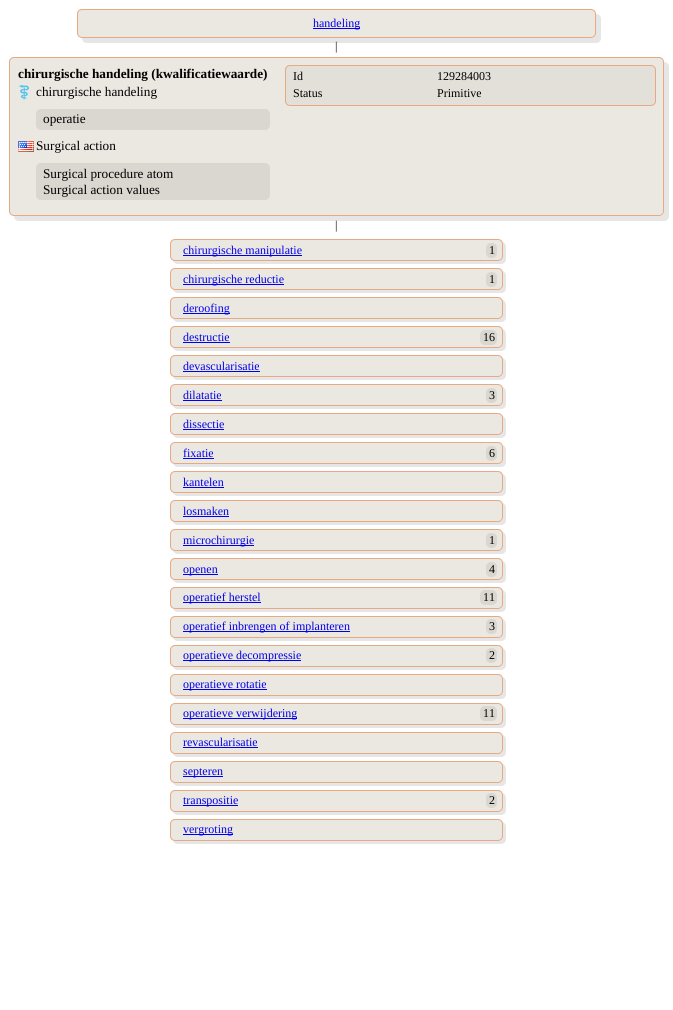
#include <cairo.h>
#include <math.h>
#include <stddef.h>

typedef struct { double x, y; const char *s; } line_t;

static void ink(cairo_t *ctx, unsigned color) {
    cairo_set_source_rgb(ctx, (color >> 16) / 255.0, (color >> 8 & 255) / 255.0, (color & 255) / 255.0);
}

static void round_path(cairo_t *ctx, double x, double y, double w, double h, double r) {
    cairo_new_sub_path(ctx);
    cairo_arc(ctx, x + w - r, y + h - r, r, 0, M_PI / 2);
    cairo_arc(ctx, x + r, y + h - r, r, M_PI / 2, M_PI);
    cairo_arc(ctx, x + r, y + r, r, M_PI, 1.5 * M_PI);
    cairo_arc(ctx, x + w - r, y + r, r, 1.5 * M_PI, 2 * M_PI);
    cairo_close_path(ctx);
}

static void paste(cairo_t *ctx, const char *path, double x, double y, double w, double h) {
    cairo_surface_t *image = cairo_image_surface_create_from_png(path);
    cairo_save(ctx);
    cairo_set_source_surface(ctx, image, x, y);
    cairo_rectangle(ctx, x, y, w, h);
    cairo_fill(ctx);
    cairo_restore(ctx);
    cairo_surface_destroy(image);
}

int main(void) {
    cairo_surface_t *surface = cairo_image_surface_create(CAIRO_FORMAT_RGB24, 673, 1010);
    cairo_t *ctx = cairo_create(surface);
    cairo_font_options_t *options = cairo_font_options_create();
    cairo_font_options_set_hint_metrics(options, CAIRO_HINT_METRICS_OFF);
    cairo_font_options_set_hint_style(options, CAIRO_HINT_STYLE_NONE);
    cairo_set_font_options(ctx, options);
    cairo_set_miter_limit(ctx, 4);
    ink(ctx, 0xFFFFFF);
    cairo_paint(ctx);
    ink(ctx, 0xE6E6E6);
    cairo_new_path(ctx);
    cairo_move_to(ctx, 82, 38);
    cairo_curve_to(ctx, 82, 41, 84, 43, 87, 43);
    cairo_line_to(ctx, 596, 43);
    cairo_curve_to(ctx, 599, 43, 601, 41, 601, 38);
    cairo_line_to(ctx, 601, 19);
    cairo_curve_to(ctx, 601, 16, 599, 14, 596, 14);
    cairo_line_to(ctx, 596, 33);
    cairo_curve_to(ctx, 596, 36, 594, 38, 591, 38);
    cairo_close_path(ctx);
    cairo_fill(ctx);
    ink(ctx, 0xEBE7E1);
    round_path(ctx, 77.5, 9.5, 518, 28, 4.5);
    cairo_fill_preserve(ctx);
    ink(ctx, 0xE6AA83);
    cairo_set_line_width(ctx, 1);
    cairo_stroke(ctx);
    ink(ctx, 0x0000EE);
    cairo_rectangle(ctx, 313, 28, 47, 1);
    cairo_fill(ctx);
    cairo_select_font_face(ctx, "Liberation Serif", CAIRO_FONT_SLANT_NORMAL, CAIRO_FONT_WEIGHT_NORMAL);
    cairo_set_font_size(ctx, 12);
    cairo_move_to(ctx, 313, 27);
    cairo_show_text(ctx, "handeling");
    ink(ctx, 0x000000);
    cairo_move_to(ctx, 335, 50);
    cairo_show_text(ctx, "|");
    ink(ctx, 0xE6E6E6);
    cairo_new_path(ctx);
    cairo_move_to(ctx, 14, 216);
    cairo_curve_to(ctx, 14, 219, 16, 221, 19, 221);
    cairo_line_to(ctx, 664, 221);
    cairo_curve_to(ctx, 667, 221, 669, 219, 669, 216);
    cairo_line_to(ctx, 669, 67);
    cairo_curve_to(ctx, 669, 64, 667, 62, 664, 62);
    cairo_line_to(ctx, 664, 211);
    cairo_curve_to(ctx, 664, 214, 662, 216, 659, 216);
    cairo_close_path(ctx);
    cairo_fill(ctx);
    ink(ctx, 0xEBE7E1);
    round_path(ctx, 9.5, 57.5, 654, 158, 4.5);
    cairo_fill_preserve(ctx);
    ink(ctx, 0xE6AA83);
    cairo_stroke(ctx);
    cairo_select_font_face(ctx, "Liberation Serif", CAIRO_FONT_SLANT_NORMAL, CAIRO_FONT_WEIGHT_BOLD);
    cairo_set_font_size(ctx, 13.25);
    ink(ctx, 0x000000);
    cairo_move_to(ctx, 18, 78);
    cairo_show_text(ctx, "chirurgische handeling (kwalificatiewaarde)");
    paste(ctx, "media/1.png", 19, 85, 10, 15);
    cairo_select_font_face(ctx, "Liberation Serif", CAIRO_FONT_SLANT_NORMAL, CAIRO_FONT_WEIGHT_NORMAL);
    cairo_move_to(ctx, 36, 96);
    cairo_show_text(ctx, "chirurgische handeling");
    ink(ctx, 0xDAD6D0);
    round_path(ctx, 36, 109, 234, 21, 5);
    cairo_fill(ctx);
    ink(ctx, 0x000000);
    cairo_move_to(ctx, 43, 123);
    cairo_show_text(ctx, "operatie");
    paste(ctx, "media/2.png", 18, 141, 16, 11);
    cairo_move_to(ctx, 36, 150);
    cairo_show_text(ctx, "Surgical action");
    ink(ctx, 0xDAD6D0);
    round_path(ctx, 36, 163, 234, 37, 5);
    cairo_fill(ctx);
    ink(ctx, 0x000000);
    cairo_move_to(ctx, 43, 178);
    cairo_show_text(ctx, "Surgical procedure atom");
    cairo_move_to(ctx, 43, 194);
    cairo_show_text(ctx, "Surgical action values");
    ink(ctx, 0xE3DFD9);
    round_path(ctx, 285.5, 65.5, 370, 40, 4.5);
    cairo_fill_preserve(ctx);
    ink(ctx, 0xE6AA83);
    cairo_stroke(ctx);
    cairo_set_font_size(ctx, 12);
    ink(ctx, 0x000000);
    {
        static const line_t items[] = {
            {293, 80, "Id"},
            {437, 80, "129284003"},
            {293, 97, "Status"},
            {437, 97, "Primitive"},
            {335, 229, "|"},
        };
        for (size_t i = 0; i < sizeof items / sizeof *items; i++) {
            cairo_move_to(ctx, items[i].x, items[i].y);
            cairo_show_text(ctx, items[i].s);
        }
    }
    ink(ctx, 0xE6E6E6);
    cairo_new_path(ctx);
    cairo_move_to(ctx, 173, 261);
    cairo_curve_to(ctx, 174, 263, 176, 264, 178, 264);
    cairo_line_to(ctx, 501, 264);
    cairo_curve_to(ctx, 504, 264, 506, 262, 506, 259);
    cairo_line_to(ctx, 506, 247);
    cairo_curve_to(ctx, 506, 245, 505, 243, 503, 242);
    cairo_line_to(ctx, 503, 250);
    cairo_curve_to(ctx, 503, 254, 504, 261, 498, 261);
    cairo_close_path(ctx);
    cairo_fill(ctx);
    ink(ctx, 0xEBE7E1);
    round_path(ctx, 170.5, 239.5, 332, 21, 4.5);
    cairo_fill_preserve(ctx);
    ink(ctx, 0xE6AA83);
    cairo_stroke(ctx);
    ink(ctx, 0x0000EE);
    cairo_rectangle(ctx, 183, 255, 119, 1);
    cairo_fill(ctx);
    cairo_move_to(ctx, 183, 254);
    cairo_show_text(ctx, "chirurgische manipulatie");
    ink(ctx, 0xDAD6D0);
    round_path(ctx, 486, 243, 11, 15, 5);
    cairo_fill(ctx);
    ink(ctx, 0x000000);
    cairo_move_to(ctx, 489, 254);
    cairo_show_text(ctx, "1");
    ink(ctx, 0xE6E6E6);
    cairo_new_path(ctx);
    cairo_move_to(ctx, 173, 290);
    cairo_curve_to(ctx, 174, 292, 176, 293, 178, 293);
    cairo_line_to(ctx, 501, 293);
    cairo_curve_to(ctx, 504, 293, 506, 291, 506, 288);
    cairo_line_to(ctx, 506, 276);
    cairo_curve_to(ctx, 506, 274, 505, 272, 503, 271);
    cairo_line_to(ctx, 503, 279);
    cairo_curve_to(ctx, 503, 283, 504, 290, 498, 290);
    cairo_close_path(ctx);
    cairo_fill(ctx);
    ink(ctx, 0xEBE7E1);
    round_path(ctx, 170.5, 268.5, 332, 21, 4.5);
    cairo_fill_preserve(ctx);
    ink(ctx, 0xE6AA83);
    cairo_stroke(ctx);
    ink(ctx, 0x0000EE);
    cairo_rectangle(ctx, 183, 284, 101, 1);
    cairo_fill(ctx);
    cairo_move_to(ctx, 183, 283);
    cairo_show_text(ctx, "chirurgische reductie");
    ink(ctx, 0xDAD6D0);
    round_path(ctx, 486, 272, 11, 15, 5);
    cairo_fill(ctx);
    ink(ctx, 0x000000);
    cairo_move_to(ctx, 489, 283);
    cairo_show_text(ctx, "1");
    ink(ctx, 0xE6E6E6);
    cairo_new_path(ctx);
    cairo_move_to(ctx, 173, 319);
    cairo_curve_to(ctx, 174, 321, 176, 322, 178, 322);
    cairo_line_to(ctx, 501, 322);
    cairo_curve_to(ctx, 504, 322, 506, 320, 506, 317);
    cairo_line_to(ctx, 506, 305);
    cairo_curve_to(ctx, 506, 303, 505, 301, 503, 300);
    cairo_line_to(ctx, 503, 308);
    cairo_curve_to(ctx, 503, 312, 504, 319, 498, 319);
    cairo_close_path(ctx);
    cairo_fill(ctx);
    ink(ctx, 0xEBE7E1);
    round_path(ctx, 170.5, 297.5, 332, 21, 4.5);
    cairo_fill_preserve(ctx);
    ink(ctx, 0xE6AA83);
    cairo_stroke(ctx);
    ink(ctx, 0x0000EE);
    cairo_rectangle(ctx, 183, 313, 47, 1);
    cairo_fill(ctx);
    cairo_move_to(ctx, 183, 312);
    cairo_show_text(ctx, "deroofing");
    ink(ctx, 0xE6E6E6);
    cairo_new_path(ctx);
    cairo_move_to(ctx, 173, 348);
    cairo_curve_to(ctx, 174, 350, 176, 351, 178, 351);
    cairo_line_to(ctx, 501, 351);
    cairo_curve_to(ctx, 504, 351, 506, 349, 506, 346);
    cairo_line_to(ctx, 506, 334);
    cairo_curve_to(ctx, 506, 332, 505, 330, 503, 329);
    cairo_line_to(ctx, 503, 337);
    cairo_curve_to(ctx, 503, 341, 504, 348, 498, 348);
    cairo_close_path(ctx);
    cairo_fill(ctx);
    ink(ctx, 0xEBE7E1);
    round_path(ctx, 170.5, 326.5, 332, 21, 4.5);
    cairo_fill_preserve(ctx);
    ink(ctx, 0xE6AA83);
    cairo_stroke(ctx);
    ink(ctx, 0x0000EE);
    cairo_move_to(ctx, 183, 341);
    cairo_show_text(ctx, "destructie");
    cairo_rectangle(ctx, 183, 342, 47, 1);
    cairo_fill(ctx);
    ink(ctx, 0xDAD6D0);
    round_path(ctx, 480, 330, 17, 15, 5);
    cairo_fill(ctx);
    ink(ctx, 0x000000);
    cairo_move_to(ctx, 483, 341);
    cairo_show_text(ctx, "16");
    ink(ctx, 0xE6E6E6);
    cairo_new_path(ctx);
    cairo_move_to(ctx, 173, 377);
    cairo_curve_to(ctx, 174, 379, 176, 380, 178, 380);
    cairo_line_to(ctx, 501, 380);
    cairo_curve_to(ctx, 504, 380, 506, 378, 506, 375);
    cairo_line_to(ctx, 506, 363);
    cairo_curve_to(ctx, 506, 361, 505, 359, 503, 358);
    cairo_line_to(ctx, 503, 366);
    cairo_curve_to(ctx, 503, 370, 504, 377, 498, 377);
    cairo_close_path(ctx);
    cairo_fill(ctx);
    ink(ctx, 0xEBE7E1);
    round_path(ctx, 170.5, 355.5, 332, 21, 4.5);
    cairo_fill_preserve(ctx);
    ink(ctx, 0xE6AA83);
    cairo_stroke(ctx);
    ink(ctx, 0x0000EE);
    cairo_move_to(ctx, 183, 370);
    cairo_show_text(ctx, "devascularisatie");
    cairo_rectangle(ctx, 183, 371, 77, 1);
    cairo_fill(ctx);
    ink(ctx, 0xE6E6E6);
    cairo_new_path(ctx);
    cairo_move_to(ctx, 173, 406);
    cairo_curve_to(ctx, 174, 408, 176, 409, 178, 409);
    cairo_line_to(ctx, 501, 409);
    cairo_curve_to(ctx, 504, 409, 506, 407, 506, 404);
    cairo_line_to(ctx, 506, 392);
    cairo_curve_to(ctx, 506, 390, 505, 388, 503, 387);
    cairo_line_to(ctx, 503, 395);
    cairo_curve_to(ctx, 503, 399, 504, 406, 498, 406);
    cairo_close_path(ctx);
    cairo_fill(ctx);
    ink(ctx, 0xEBE7E1);
    round_path(ctx, 170.5, 384.5, 332, 21, 4.5);
    cairo_fill_preserve(ctx);
    ink(ctx, 0xE6AA83);
    cairo_stroke(ctx);
    ink(ctx, 0x0000EE);
    cairo_move_to(ctx, 183, 399);
    cairo_show_text(ctx, "dilatatie");
    cairo_rectangle(ctx, 183, 400, 39, 1);
    cairo_fill(ctx);
    ink(ctx, 0xDAD6D0);
    round_path(ctx, 486, 388, 11, 15, 5);
    cairo_fill(ctx);
    ink(ctx, 0x000000);
    cairo_move_to(ctx, 489, 399);
    cairo_show_text(ctx, "3");
    ink(ctx, 0xE6E6E6);
    cairo_new_path(ctx);
    cairo_move_to(ctx, 173, 435);
    cairo_curve_to(ctx, 174, 437, 176, 438, 178, 438);
    cairo_line_to(ctx, 501, 438);
    cairo_curve_to(ctx, 504, 438, 506, 436, 506, 433);
    cairo_line_to(ctx, 506, 421);
    cairo_curve_to(ctx, 506, 419, 505, 417, 503, 416);
    cairo_line_to(ctx, 503, 424);
    cairo_curve_to(ctx, 503, 428, 504, 435, 498, 435);
    cairo_close_path(ctx);
    cairo_fill(ctx);
    ink(ctx, 0xEBE7E1);
    round_path(ctx, 170.5, 413.5, 332, 21, 4.5);
    cairo_fill_preserve(ctx);
    ink(ctx, 0xE6AA83);
    cairo_stroke(ctx);
    ink(ctx, 0x0000EE);
    cairo_move_to(ctx, 183, 428);
    cairo_show_text(ctx, "dissectie");
    cairo_rectangle(ctx, 183, 429, 41, 1);
    cairo_fill(ctx);
    ink(ctx, 0xE6E6E6);
    cairo_new_path(ctx);
    cairo_move_to(ctx, 173, 464);
    cairo_curve_to(ctx, 174, 466, 176, 467, 178, 467);
    cairo_line_to(ctx, 501, 467);
    cairo_curve_to(ctx, 504, 467, 506, 465, 506, 462);
    cairo_line_to(ctx, 506, 450);
    cairo_curve_to(ctx, 506, 448, 505, 446, 503, 445);
    cairo_line_to(ctx, 503, 453);
    cairo_curve_to(ctx, 503, 457, 504, 464, 498, 464);
    cairo_close_path(ctx);
    cairo_fill(ctx);
    ink(ctx, 0xEBE7E1);
    round_path(ctx, 170.5, 442.5, 332, 21, 4.5);
    cairo_fill_preserve(ctx);
    ink(ctx, 0xE6AA83);
    cairo_stroke(ctx);
    ink(ctx, 0x0000EE);
    cairo_move_to(ctx, 183, 457);
    cairo_show_text(ctx, "fixatie");
    cairo_rectangle(ctx, 183, 458, 31, 1);
    cairo_fill(ctx);
    ink(ctx, 0xDAD6D0);
    round_path(ctx, 486, 446, 11, 15, 5);
    cairo_fill(ctx);
    ink(ctx, 0x000000);
    cairo_move_to(ctx, 489, 457);
    cairo_show_text(ctx, "6");
    ink(ctx, 0xE6E6E6);
    cairo_new_path(ctx);
    cairo_move_to(ctx, 173, 493);
    cairo_curve_to(ctx, 174, 495, 176, 496, 178, 496);
    cairo_line_to(ctx, 501, 496);
    cairo_curve_to(ctx, 504, 496, 506, 494, 506, 491);
    cairo_line_to(ctx, 506, 479);
    cairo_curve_to(ctx, 506, 477, 505, 475, 503, 474);
    cairo_line_to(ctx, 503, 482);
    cairo_curve_to(ctx, 503, 486, 504, 493, 498, 493);
    cairo_close_path(ctx);
    cairo_fill(ctx);
    ink(ctx, 0xEBE7E1);
    round_path(ctx, 170.5, 471.5, 332, 21, 4.5);
    cairo_fill_preserve(ctx);
    ink(ctx, 0xE6AA83);
    cairo_stroke(ctx);
    ink(ctx, 0x0000EE);
    cairo_move_to(ctx, 183, 486);
    cairo_show_text(ctx, "kantelen");
    cairo_rectangle(ctx, 183, 487, 41, 1);
    cairo_fill(ctx);
    ink(ctx, 0xE6E6E6);
    cairo_new_path(ctx);
    cairo_move_to(ctx, 173, 522);
    cairo_curve_to(ctx, 174, 524, 176, 525, 178, 525);
    cairo_line_to(ctx, 501, 525);
    cairo_curve_to(ctx, 504, 525, 506, 523, 506, 520);
    cairo_line_to(ctx, 506, 508);
    cairo_curve_to(ctx, 506, 506, 505, 504, 503, 503);
    cairo_line_to(ctx, 503, 511);
    cairo_curve_to(ctx, 503, 515, 504, 522, 498, 522);
    cairo_close_path(ctx);
    cairo_fill(ctx);
    ink(ctx, 0xEBE7E1);
    round_path(ctx, 170.5, 500.5, 332, 21, 4.5);
    cairo_fill_preserve(ctx);
    ink(ctx, 0xE6AA83);
    cairo_stroke(ctx);
    ink(ctx, 0x0000EE);
    cairo_move_to(ctx, 183, 515);
    cairo_show_text(ctx, "losmaken");
    cairo_rectangle(ctx, 183, 516, 46, 1);
    cairo_fill(ctx);
    ink(ctx, 0xE6E6E6);
    cairo_new_path(ctx);
    cairo_move_to(ctx, 173, 551);
    cairo_curve_to(ctx, 174, 553, 176, 554, 178, 554);
    cairo_line_to(ctx, 501, 554);
    cairo_curve_to(ctx, 504, 554, 506, 552, 506, 549);
    cairo_line_to(ctx, 506, 537);
    cairo_curve_to(ctx, 506, 535, 505, 533, 503, 532);
    cairo_line_to(ctx, 503, 540);
    cairo_curve_to(ctx, 503, 544, 504, 551, 498, 551);
    cairo_close_path(ctx);
    cairo_fill(ctx);
    ink(ctx, 0xEBE7E1);
    round_path(ctx, 170.5, 529.5, 332, 21, 4.5);
    cairo_fill_preserve(ctx);
    ink(ctx, 0xE6AA83);
    cairo_stroke(ctx);
    ink(ctx, 0x0000EE);
    cairo_rectangle(ctx, 183, 545, 71, 1);
    cairo_fill(ctx);
    cairo_move_to(ctx, 183, 544);
    cairo_show_text(ctx, "microchirurgie");
    ink(ctx, 0xDAD6D0);
    round_path(ctx, 486, 533, 11, 15, 5);
    cairo_fill(ctx);
    ink(ctx, 0x000000);
    cairo_move_to(ctx, 489, 544);
    cairo_show_text(ctx, "1");
    ink(ctx, 0xE6E6E6);
    cairo_new_path(ctx);
    cairo_move_to(ctx, 173, 580);
    cairo_curve_to(ctx, 174, 582, 176, 583, 178, 583);
    cairo_line_to(ctx, 501, 583);
    cairo_curve_to(ctx, 504, 583, 506, 581, 506, 578);
    cairo_line_to(ctx, 506, 566);
    cairo_curve_to(ctx, 506, 564, 505, 562, 503, 561);
    cairo_line_to(ctx, 503, 569);
    cairo_curve_to(ctx, 503, 573, 504, 580, 498, 580);
    cairo_close_path(ctx);
    cairo_fill(ctx);
    ink(ctx, 0xEBE7E1);
    round_path(ctx, 170.5, 558.5, 332, 21, 4.5);
    cairo_fill_preserve(ctx);
    ink(ctx, 0xE6AA83);
    cairo_stroke(ctx);
    ink(ctx, 0x0000EE);
    cairo_rectangle(ctx, 183, 574, 35, 1);
    cairo_fill(ctx);
    cairo_move_to(ctx, 183, 573);
    cairo_show_text(ctx, "openen");
    ink(ctx, 0xDAD6D0);
    round_path(ctx, 486, 562, 11, 15, 5);
    cairo_fill(ctx);
    ink(ctx, 0x000000);
    cairo_move_to(ctx, 489, 573);
    cairo_show_text(ctx, "4");
    ink(ctx, 0xE6E6E6);
    cairo_new_path(ctx);
    cairo_move_to(ctx, 173, 609);
    cairo_curve_to(ctx, 174, 611, 176, 612, 178, 612);
    cairo_line_to(ctx, 501, 612);
    cairo_curve_to(ctx, 504, 612, 506, 610, 506, 607);
    cairo_line_to(ctx, 506, 595);
    cairo_curve_to(ctx, 506, 593, 505, 591, 503, 590);
    cairo_line_to(ctx, 503, 598);
    cairo_curve_to(ctx, 503, 602, 504, 609, 498, 609);
    cairo_close_path(ctx);
    cairo_fill(ctx);
    ink(ctx, 0xEBE7E1);
    round_path(ctx, 170.5, 587.5, 332, 21, 4.5);
    cairo_fill_preserve(ctx);
    ink(ctx, 0xE6AA83);
    cairo_stroke(ctx);
    ink(ctx, 0x0000EE);
    cairo_rectangle(ctx, 183, 602, 78, 1);
    cairo_fill(ctx);
    cairo_move_to(ctx, 183, 601);
    cairo_show_text(ctx, "operatief herstel");
    ink(ctx, 0xDAD6D0);
    round_path(ctx, 480, 590, 17, 15, 5);
    cairo_fill(ctx);
    ink(ctx, 0x000000);
    cairo_move_to(ctx, 483, 601);
    cairo_show_text(ctx, "11");
    ink(ctx, 0xE6E6E6);
    cairo_new_path(ctx);
    cairo_move_to(ctx, 173, 638);
    cairo_curve_to(ctx, 174, 640, 176, 641, 178, 641);
    cairo_line_to(ctx, 501, 641);
    cairo_curve_to(ctx, 504, 641, 506, 639, 506, 636);
    cairo_line_to(ctx, 506, 624);
    cairo_curve_to(ctx, 506, 622, 505, 620, 503, 619);
    cairo_line_to(ctx, 503, 627);
    cairo_curve_to(ctx, 503, 631, 504, 638, 498, 638);
    cairo_close_path(ctx);
    cairo_fill(ctx);
    ink(ctx, 0xEBE7E1);
    round_path(ctx, 170.5, 616.5, 332, 21, 4.5);
    cairo_fill_preserve(ctx);
    ink(ctx, 0xE6AA83);
    cairo_stroke(ctx);
    ink(ctx, 0x0000EE);
    cairo_rectangle(ctx, 183, 631, 167, 1);
    cairo_fill(ctx);
    cairo_move_to(ctx, 183, 630);
    cairo_show_text(ctx, "operatief inbrengen of implanteren");
    ink(ctx, 0xDAD6D0);
    round_path(ctx, 486, 619, 11, 15, 5);
    cairo_fill(ctx);
    ink(ctx, 0x000000);
    cairo_move_to(ctx, 489, 630);
    cairo_show_text(ctx, "3");
    ink(ctx, 0xE6E6E6);
    cairo_new_path(ctx);
    cairo_move_to(ctx, 173, 667);
    cairo_curve_to(ctx, 174, 669, 176, 670, 178, 670);
    cairo_line_to(ctx, 501, 670);
    cairo_curve_to(ctx, 504, 670, 506, 668, 506, 665);
    cairo_line_to(ctx, 506, 653);
    cairo_curve_to(ctx, 506, 651, 505, 649, 503, 648);
    cairo_line_to(ctx, 503, 656);
    cairo_curve_to(ctx, 503, 660, 504, 667, 498, 667);
    cairo_close_path(ctx);
    cairo_fill(ctx);
    ink(ctx, 0xEBE7E1);
    round_path(ctx, 170.5, 645.5, 332, 21, 4.5);
    cairo_fill_preserve(ctx);
    ink(ctx, 0xE6AA83);
    cairo_stroke(ctx);
    ink(ctx, 0x0000EE);
    cairo_rectangle(ctx, 183, 660, 118, 1);
    cairo_fill(ctx);
    cairo_move_to(ctx, 183, 659);
    cairo_show_text(ctx, "operatieve decompressie");
    ink(ctx, 0xDAD6D0);
    round_path(ctx, 486, 648, 11, 15, 5);
    cairo_fill(ctx);
    ink(ctx, 0x000000);
    cairo_move_to(ctx, 489, 659);
    cairo_show_text(ctx, "2");
    ink(ctx, 0xE6E6E6);
    cairo_new_path(ctx);
    cairo_move_to(ctx, 173, 696);
    cairo_curve_to(ctx, 174, 698, 176, 699, 178, 699);
    cairo_line_to(ctx, 501, 699);
    cairo_curve_to(ctx, 504, 699, 506, 697, 506, 694);
    cairo_line_to(ctx, 506, 682);
    cairo_curve_to(ctx, 506, 680, 505, 678, 503, 677);
    cairo_line_to(ctx, 503, 685);
    cairo_curve_to(ctx, 503, 689, 504, 696, 498, 696);
    cairo_close_path(ctx);
    cairo_fill(ctx);
    ink(ctx, 0xEBE7E1);
    round_path(ctx, 170.5, 674.5, 332, 21, 4.5);
    cairo_fill_preserve(ctx);
    ink(ctx, 0xE6AA83);
    cairo_stroke(ctx);
    ink(ctx, 0x0000EE);
    cairo_rectangle(ctx, 183, 689, 84, 1);
    cairo_fill(ctx);
    cairo_move_to(ctx, 183, 688);
    cairo_show_text(ctx, "operatieve rotatie");
    ink(ctx, 0xE6E6E6);
    cairo_new_path(ctx);
    cairo_move_to(ctx, 173, 725);
    cairo_curve_to(ctx, 174, 727, 176, 728, 178, 728);
    cairo_line_to(ctx, 501, 728);
    cairo_curve_to(ctx, 504, 728, 506, 726, 506, 723);
    cairo_line_to(ctx, 506, 711);
    cairo_curve_to(ctx, 506, 709, 505, 707, 503, 706);
    cairo_line_to(ctx, 503, 714);
    cairo_curve_to(ctx, 503, 718, 504, 725, 498, 725);
    cairo_close_path(ctx);
    cairo_fill(ctx);
    ink(ctx, 0xEBE7E1);
    round_path(ctx, 170.5, 703.5, 332, 21, 4.5);
    cairo_fill_preserve(ctx);
    ink(ctx, 0xE6AA83);
    cairo_stroke(ctx);
    ink(ctx, 0x0000EE);
    cairo_rectangle(ctx, 183, 718, 114, 1);
    cairo_fill(ctx);
    cairo_move_to(ctx, 183, 717);
    cairo_show_text(ctx, "operatieve verwijdering");
    ink(ctx, 0xDAD6D0);
    round_path(ctx, 480, 706, 17, 15, 5);
    cairo_fill(ctx);
    ink(ctx, 0x000000);
    cairo_move_to(ctx, 483, 717);
    cairo_show_text(ctx, "11");
    ink(ctx, 0xE6E6E6);
    cairo_new_path(ctx);
    cairo_move_to(ctx, 173, 754);
    cairo_curve_to(ctx, 174, 756, 176, 757, 178, 757);
    cairo_line_to(ctx, 501, 757);
    cairo_curve_to(ctx, 504, 757, 506, 755, 506, 752);
    cairo_line_to(ctx, 506, 740);
    cairo_curve_to(ctx, 506, 738, 505, 736, 503, 735);
    cairo_line_to(ctx, 503, 743);
    cairo_curve_to(ctx, 503, 747, 504, 754, 498, 754);
    cairo_close_path(ctx);
    cairo_fill(ctx);
    ink(ctx, 0xEBE7E1);
    round_path(ctx, 170.5, 732.5, 332, 21, 4.5);
    cairo_fill_preserve(ctx);
    ink(ctx, 0xE6AA83);
    cairo_stroke(ctx);
    ink(ctx, 0x0000EE);
    cairo_move_to(ctx, 183, 746);
    cairo_show_text(ctx, "revascularisatie");
    cairo_rectangle(ctx, 183, 747, 75, 1);
    cairo_fill(ctx);
    ink(ctx, 0xE6E6E6);
    cairo_new_path(ctx);
    cairo_move_to(ctx, 173, 783);
    cairo_curve_to(ctx, 174, 785, 176, 786, 178, 786);
    cairo_line_to(ctx, 501, 786);
    cairo_curve_to(ctx, 504, 786, 506, 784, 506, 781);
    cairo_line_to(ctx, 506, 769);
    cairo_curve_to(ctx, 506, 767, 505, 765, 503, 764);
    cairo_line_to(ctx, 503, 772);
    cairo_curve_to(ctx, 503, 776, 504, 783, 498, 783);
    cairo_close_path(ctx);
    cairo_fill(ctx);
    ink(ctx, 0xEBE7E1);
    round_path(ctx, 170.5, 761.5, 332, 21, 4.5);
    cairo_fill_preserve(ctx);
    ink(ctx, 0xE6AA83);
    cairo_stroke(ctx);
    ink(ctx, 0x0000EE);
    cairo_rectangle(ctx, 183, 776, 40, 1);
    cairo_fill(ctx);
    cairo_move_to(ctx, 183, 775);
    cairo_show_text(ctx, "septeren");
    ink(ctx, 0xE6E6E6);
    cairo_new_path(ctx);
    cairo_move_to(ctx, 173, 812);
    cairo_curve_to(ctx, 174, 814, 176, 815, 178, 815);
    cairo_line_to(ctx, 501, 815);
    cairo_curve_to(ctx, 504, 815, 506, 813, 506, 810);
    cairo_line_to(ctx, 506, 798);
    cairo_curve_to(ctx, 506, 796, 505, 794, 503, 793);
    cairo_line_to(ctx, 503, 801);
    cairo_curve_to(ctx, 503, 805, 504, 812, 498, 812);
    cairo_close_path(ctx);
    cairo_fill(ctx);
    ink(ctx, 0xEBE7E1);
    round_path(ctx, 170.5, 790.5, 332, 21, 4.5);
    cairo_fill_preserve(ctx);
    ink(ctx, 0xE6AA83);
    cairo_stroke(ctx);
    ink(ctx, 0x0000EE);
    cairo_rectangle(ctx, 183, 805, 55, 1);
    cairo_fill(ctx);
    cairo_move_to(ctx, 183, 804);
    cairo_show_text(ctx, "transpositie");
    ink(ctx, 0xDAD6D0);
    round_path(ctx, 486, 793, 11, 15, 5);
    cairo_fill(ctx);
    ink(ctx, 0x000000);
    cairo_move_to(ctx, 489, 804);
    cairo_show_text(ctx, "2");
    ink(ctx, 0xE6E6E6);
    cairo_new_path(ctx);
    cairo_move_to(ctx, 173, 841);
    cairo_curve_to(ctx, 174, 843, 176, 844, 178, 844);
    cairo_line_to(ctx, 501, 844);
    cairo_curve_to(ctx, 504, 844, 506, 842, 506, 839);
    cairo_line_to(ctx, 506, 827);
    cairo_curve_to(ctx, 506, 825, 505, 823, 503, 822);
    cairo_line_to(ctx, 503, 830);
    cairo_curve_to(ctx, 503, 834, 504, 841, 498, 841);
    cairo_close_path(ctx);
    cairo_fill(ctx);
    ink(ctx, 0xEBE7E1);
    round_path(ctx, 170.5, 819.5, 332, 21, 4.5);
    cairo_fill_preserve(ctx);
    ink(ctx, 0xE6AA83);
    cairo_stroke(ctx);
    ink(ctx, 0x0000EE);
    cairo_rectangle(ctx, 183, 834, 50, 1);
    cairo_fill(ctx);
    cairo_move_to(ctx, 183, 833);
    cairo_show_text(ctx, "vergroting");
    cairo_surface_write_to_png(surface, "image.png");
    cairo_font_options_destroy(options);
    cairo_destroy(ctx);
    cairo_surface_destroy(surface);
    return 0;
}
